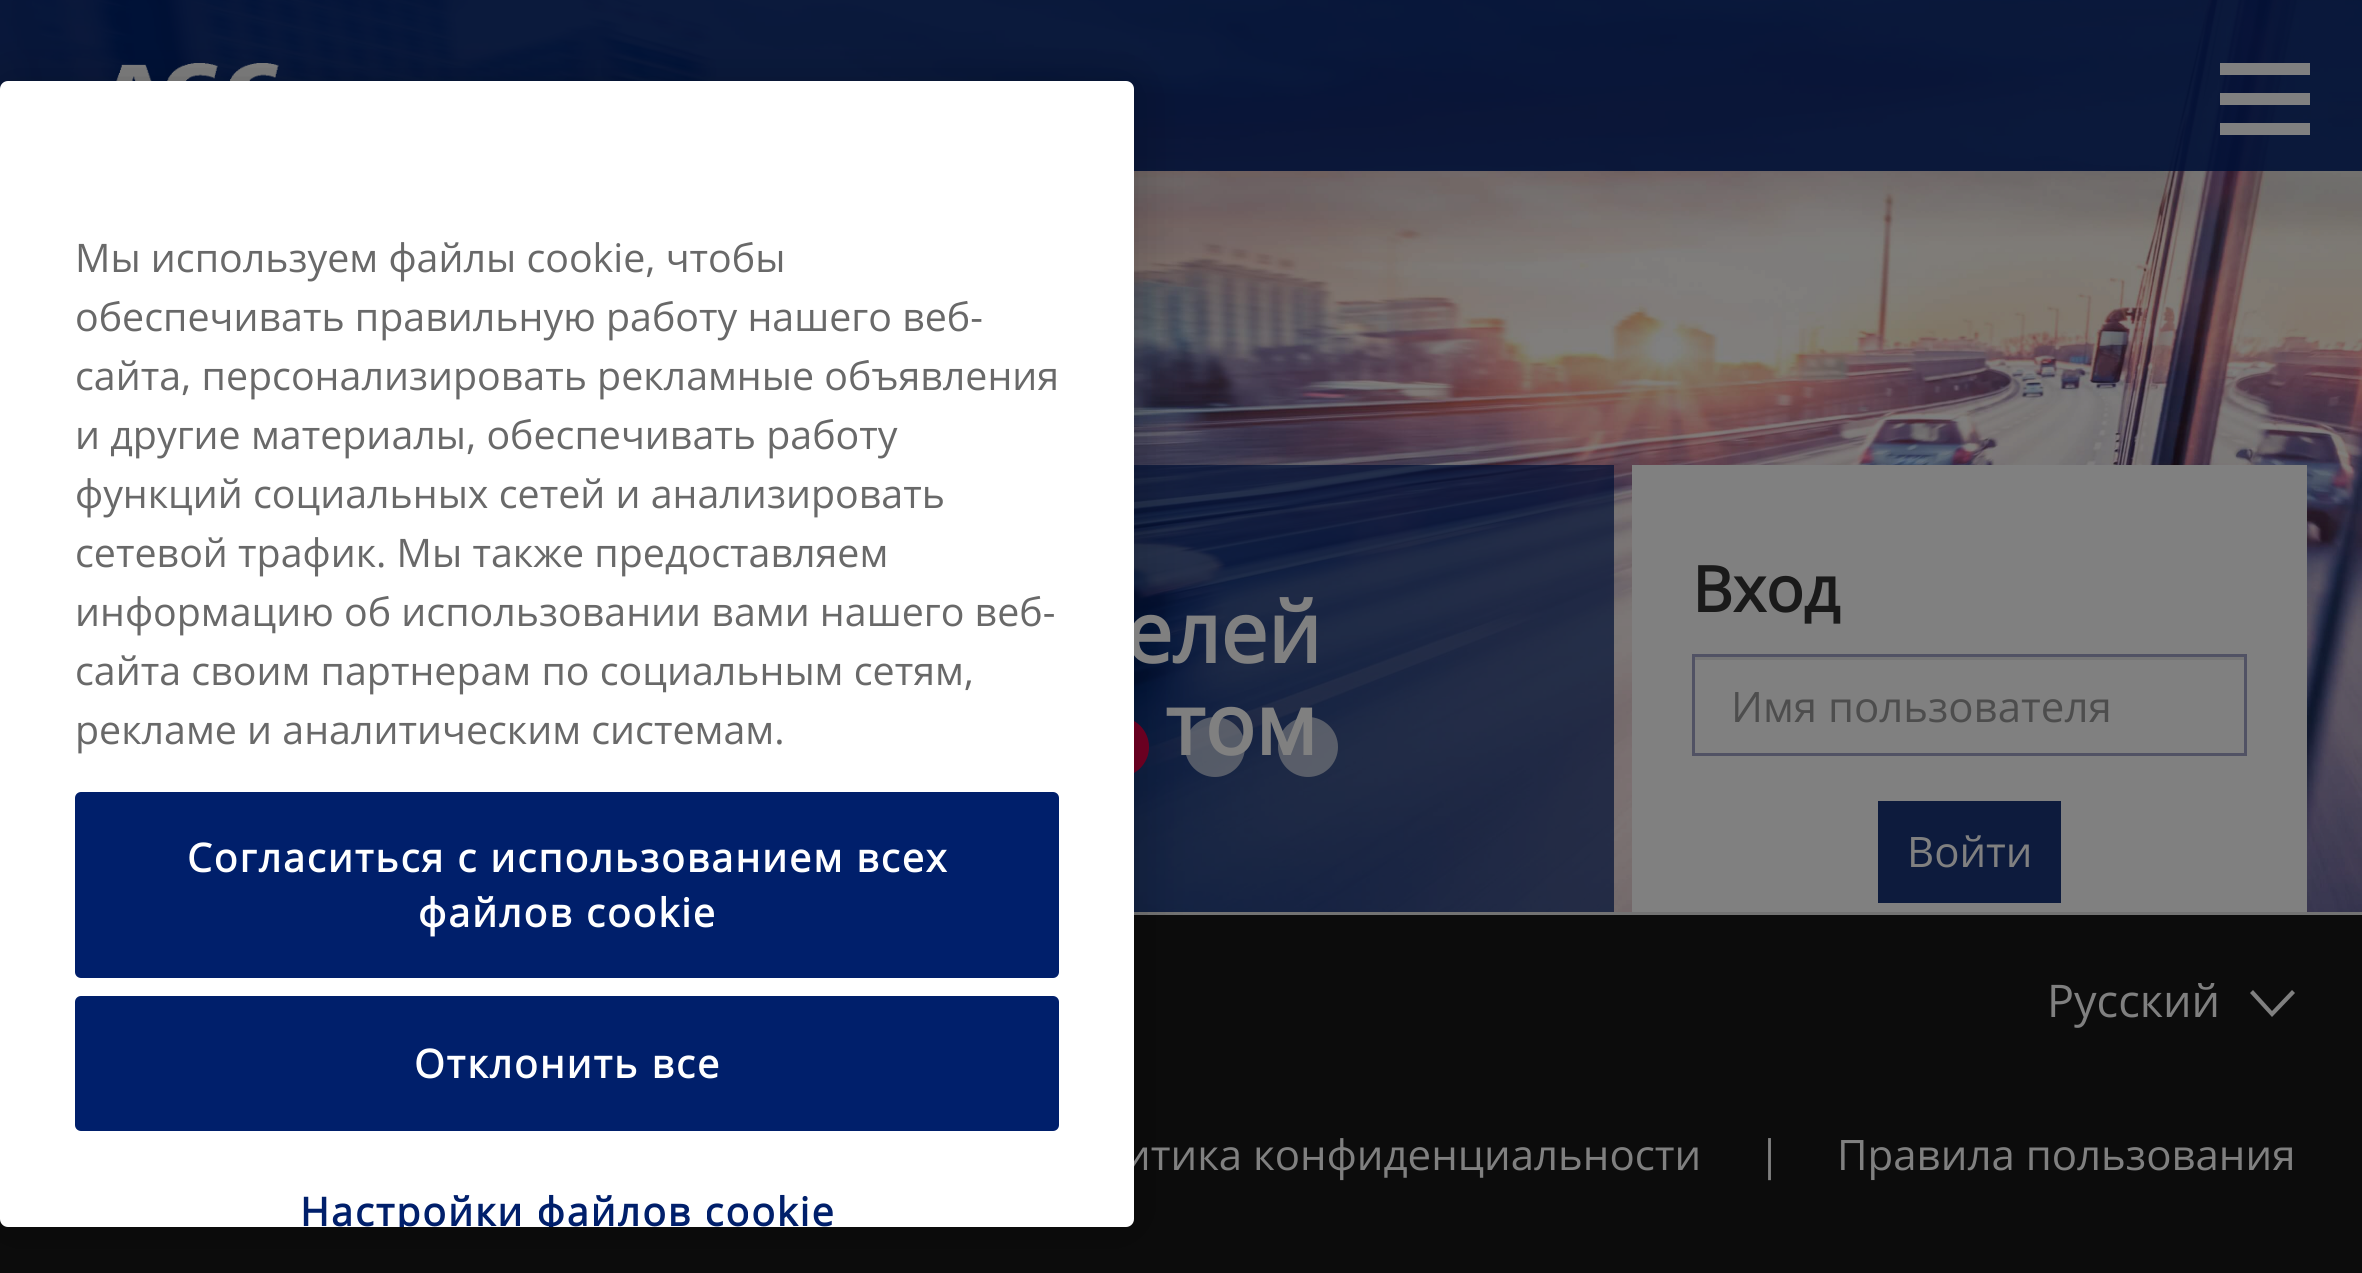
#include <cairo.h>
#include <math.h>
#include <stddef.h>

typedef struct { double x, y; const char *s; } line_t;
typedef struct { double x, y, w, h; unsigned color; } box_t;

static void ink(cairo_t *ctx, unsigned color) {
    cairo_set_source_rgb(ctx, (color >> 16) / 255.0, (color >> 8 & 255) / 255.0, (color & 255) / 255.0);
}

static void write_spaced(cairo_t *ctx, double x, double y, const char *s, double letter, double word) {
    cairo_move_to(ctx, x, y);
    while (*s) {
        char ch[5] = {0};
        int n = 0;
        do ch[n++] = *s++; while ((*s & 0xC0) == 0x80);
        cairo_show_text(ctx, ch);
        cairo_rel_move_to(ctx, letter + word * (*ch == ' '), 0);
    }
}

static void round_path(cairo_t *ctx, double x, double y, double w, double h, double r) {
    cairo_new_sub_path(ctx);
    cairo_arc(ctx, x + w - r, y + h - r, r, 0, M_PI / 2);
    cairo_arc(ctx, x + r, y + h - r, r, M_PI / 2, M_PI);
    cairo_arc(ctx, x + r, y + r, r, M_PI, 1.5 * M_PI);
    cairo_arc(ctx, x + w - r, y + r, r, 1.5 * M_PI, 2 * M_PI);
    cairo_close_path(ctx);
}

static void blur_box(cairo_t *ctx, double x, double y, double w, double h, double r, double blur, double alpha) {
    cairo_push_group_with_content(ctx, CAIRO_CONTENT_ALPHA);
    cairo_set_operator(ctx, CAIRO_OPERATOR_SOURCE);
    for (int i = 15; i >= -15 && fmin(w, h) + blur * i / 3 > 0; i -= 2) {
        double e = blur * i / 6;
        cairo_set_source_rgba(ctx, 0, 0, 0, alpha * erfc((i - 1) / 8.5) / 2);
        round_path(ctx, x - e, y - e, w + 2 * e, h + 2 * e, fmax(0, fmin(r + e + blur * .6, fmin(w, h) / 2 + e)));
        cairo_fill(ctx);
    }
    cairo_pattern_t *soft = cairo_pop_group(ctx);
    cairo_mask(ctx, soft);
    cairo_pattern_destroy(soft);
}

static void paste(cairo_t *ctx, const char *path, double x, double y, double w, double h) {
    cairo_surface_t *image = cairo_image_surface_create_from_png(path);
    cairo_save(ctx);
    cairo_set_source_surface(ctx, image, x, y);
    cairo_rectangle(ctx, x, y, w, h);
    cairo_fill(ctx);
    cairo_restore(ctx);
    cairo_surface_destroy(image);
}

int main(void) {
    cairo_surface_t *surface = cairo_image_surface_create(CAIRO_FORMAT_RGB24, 2362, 1273);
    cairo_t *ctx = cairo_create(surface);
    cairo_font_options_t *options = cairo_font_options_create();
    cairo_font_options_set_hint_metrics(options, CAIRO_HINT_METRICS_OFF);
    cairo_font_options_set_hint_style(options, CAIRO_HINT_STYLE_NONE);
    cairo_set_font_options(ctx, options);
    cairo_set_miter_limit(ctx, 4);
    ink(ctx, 0xFFFFFF);
    cairo_paint(ctx);
    paste(ctx, "media/1.png", 0, 0, 2362, 912);
    cairo_set_source_rgba(ctx, 0, 0.063, 0.212, 0.9);
    cairo_rectangle(ctx, 0, 0, 2362, 171);
    cairo_fill(ctx);
    paste(ctx, "media/2.png", 116, 63, 163, 18);
    cairo_set_source_rgba(ctx, 0, 0.063, 0.212, 0.7);
    cairo_rectangle(ctx, 1134, 465, 480, 447);
    cairo_fill(ctx);
    ink(ctx, 0x720023);
    cairo_arc(ctx, 1119, 747, 30, 0, 2 * M_PI);
    cairo_fill(ctx);
    cairo_select_font_face(ctx, "Open Sans", CAIRO_FONT_SLANT_NORMAL, CAIRO_FONT_WEIGHT_BOLD);
    cairo_set_font_size(ctx, 84);
    ink(ctx, 0x808080);
    cairo_move_to(ctx, 1165, 755);
    cairo_show_text(ctx, "том");
    cairo_set_source_rgba(ctx, 0.502, 0.502, 0.502, 0.6);
    cairo_new_path(ctx);
    cairo_arc(ctx, 1215, 747, 30, 0, 2 * M_PI);
    cairo_fill(ctx);
    ink(ctx, 0x0C0C0C);
    cairo_rectangle(ctx, 0, 915, 2362, 358);
    cairo_fill(ctx);
    ink(ctx, 0x737373);
    cairo_rectangle(ctx, 1134, 912, 1228, 3);
    cairo_fill(ctx);
    ink(ctx, 0x000000);
    blur_box(ctx, 0, 81, 1134, 1146, 8, 27, 0.2);
    ink(ctx, 0x808080);
    cairo_move_to(ctx, 1125, 663);
    cairo_show_text(ctx, "елей");
    cairo_select_font_face(ctx, "Open Sans", CAIRO_FONT_SLANT_NORMAL, CAIRO_FONT_WEIGHT_NORMAL);
    cairo_set_font_size(ctx, 42);
    cairo_move_to(ctx, 1124, 1170);
    cairo_show_text(ctx, "итика конфиденциальности");
    ink(ctx, 0xFFFFFF);
    round_path(ctx, 0, 81, 1134, 1146, 8);
    cairo_fill(ctx);
    cairo_set_font_size(ctx, 39.35);
    ink(ctx, 0x696969);
    {
        static const line_t items[] = {
            {75, 272, "Мы используем файлы cookie, чтобы"},
            {75, 331, "обеспечивать правильную работу нашего веб-"},
            {75, 390, "сайта, персонализировать рекламные объявления"},
            {75, 449, "и другие материалы, обеспечивать работу"},
            {75, 508, "функций социальных сетей и анализировать"},
            {75, 567, "сетевой трафик. Мы также предоставляем"},
            {75, 626, "информацию об использовании вами нашего веб-"},
            {75, 685, "сайта своим партнерам по социальным сетям,"},
            {75, 744, "рекламе и аналитическим системам."},
        };
        for (size_t i = 0; i < sizeof items / sizeof *items; i++) {
            cairo_move_to(ctx, items[i].x, items[i].y);
            cairo_show_text(ctx, items[i].s);
        }
    }
    ink(ctx, 0x001F6B);
    round_path(ctx, 76.5, 793.5, 981, 183, 4.5);
    cairo_fill_preserve(ctx);
    cairo_set_line_width(ctx, 3);
    cairo_stroke(ctx);
    cairo_select_font_face(ctx, "Open Sans", CAIRO_FONT_SLANT_NORMAL, CAIRO_FONT_WEIGHT_BOLD);
    ink(ctx, 0xFFFFFF);
    write_spaced(ctx, 187, 872, "Согласиться с использованием всех", 2, 0);
    write_spaced(ctx, 418, 927, "файлов cookie", 2, 0);
    ink(ctx, 0x001F6B);
    round_path(ctx, 76.5, 997.5, 981, 132, 4.5);
    cairo_fill_preserve(ctx);
    cairo_stroke(ctx);
    ink(ctx, 0xFFFFFF);
    write_spaced(ctx, 414, 1078, "Отклонить все", 2, 0);
    cairo_save(ctx);
    round_path(ctx, 0, 81, 1134, 1146, 8);
    cairo_clip(ctx);
    ink(ctx, 0x001F6B);
    write_spaced(ctx, 300, 1226, "Настройки файлов cookie", 2, 0);
    cairo_restore(ctx);
    {
        static const box_t items[] = {
            {2220, 63, 90, 12, 0x808080},
            {2220, 93, 90, 12, 0x808080},
            {2220, 123, 90, 12, 0x808080},
        };
        for (size_t i = 0; i < sizeof items / sizeof *items; i++) {
            ink(ctx, items[i].color);
            cairo_rectangle(ctx, items[i].x, items[i].y, items[i].w, items[i].h);
            cairo_fill(ctx);
        }
    }
    cairo_set_source_rgba(ctx, 0.502, 0.502, 0.502, 0.6);
    cairo_new_path(ctx);
    cairo_arc(ctx, 1308, 747, 30, 0, 2 * M_PI);
    cairo_fill(ctx);
    ink(ctx, 0x808080);
    cairo_rectangle(ctx, 1632, 465, 675, 447);
    cairo_fill(ctx);
    cairo_set_font_size(ctx, 63);
    ink(ctx, 0x1A1A1A);
    cairo_move_to(ctx, 1692, 612);
    cairo_show_text(ctx, "Вход");
    ink(ctx, 0x767676);
    cairo_rectangle(ctx, 1695, 657, 549, 3);
    cairo_fill(ctx);
    cairo_rectangle(ctx, 1693.5, 655.5, 552, 99);
    ink(ctx, 0x515264);
    cairo_stroke(ctx);
    cairo_select_font_face(ctx, "Open Sans", CAIRO_FONT_SLANT_NORMAL, CAIRO_FONT_WEIGHT_NORMAL);
    cairo_set_font_size(ctx, 42);
    ink(ctx, 0x4D4D4D);
    cairo_move_to(ctx, 1731, 722);
    cairo_show_text(ctx, "Имя пользователя");
    ink(ctx, 0x0D1B3D);
    cairo_rectangle(ctx, 1878, 801, 183, 102);
    cairo_fill(ctx);
    ink(ctx, 0x808080);
    cairo_move_to(ctx, 1907, 867);
    cairo_show_text(ctx, "Войти");
    cairo_set_font_size(ctx, 45);
    cairo_move_to(ctx, 2047, 1017);
    cairo_show_text(ctx, "Русский");
    cairo_new_path(ctx);
    cairo_move_to(ctx, 2292, 990);
    cairo_line_to(ctx, 2295, 993);
    cairo_line_to(ctx, 2272, 1017);
    cairo_line_to(ctx, 2250, 993);
    cairo_line_to(ctx, 2253, 990);
    cairo_line_to(ctx, 2272, 1011);
    cairo_close_path(ctx);
    cairo_fill(ctx);
    cairo_set_font_size(ctx, 42);
    cairo_move_to(ctx, 1758, 1170);
    cairo_show_text(ctx, "|");
    cairo_move_to(ctx, 1837, 1170);
    cairo_show_text(ctx, "Правила пользования");
    cairo_surface_write_to_png(surface, "image.png");
    cairo_font_options_destroy(options);
    cairo_destroy(ctx);
    cairo_surface_destroy(surface);
    return 0;
}
